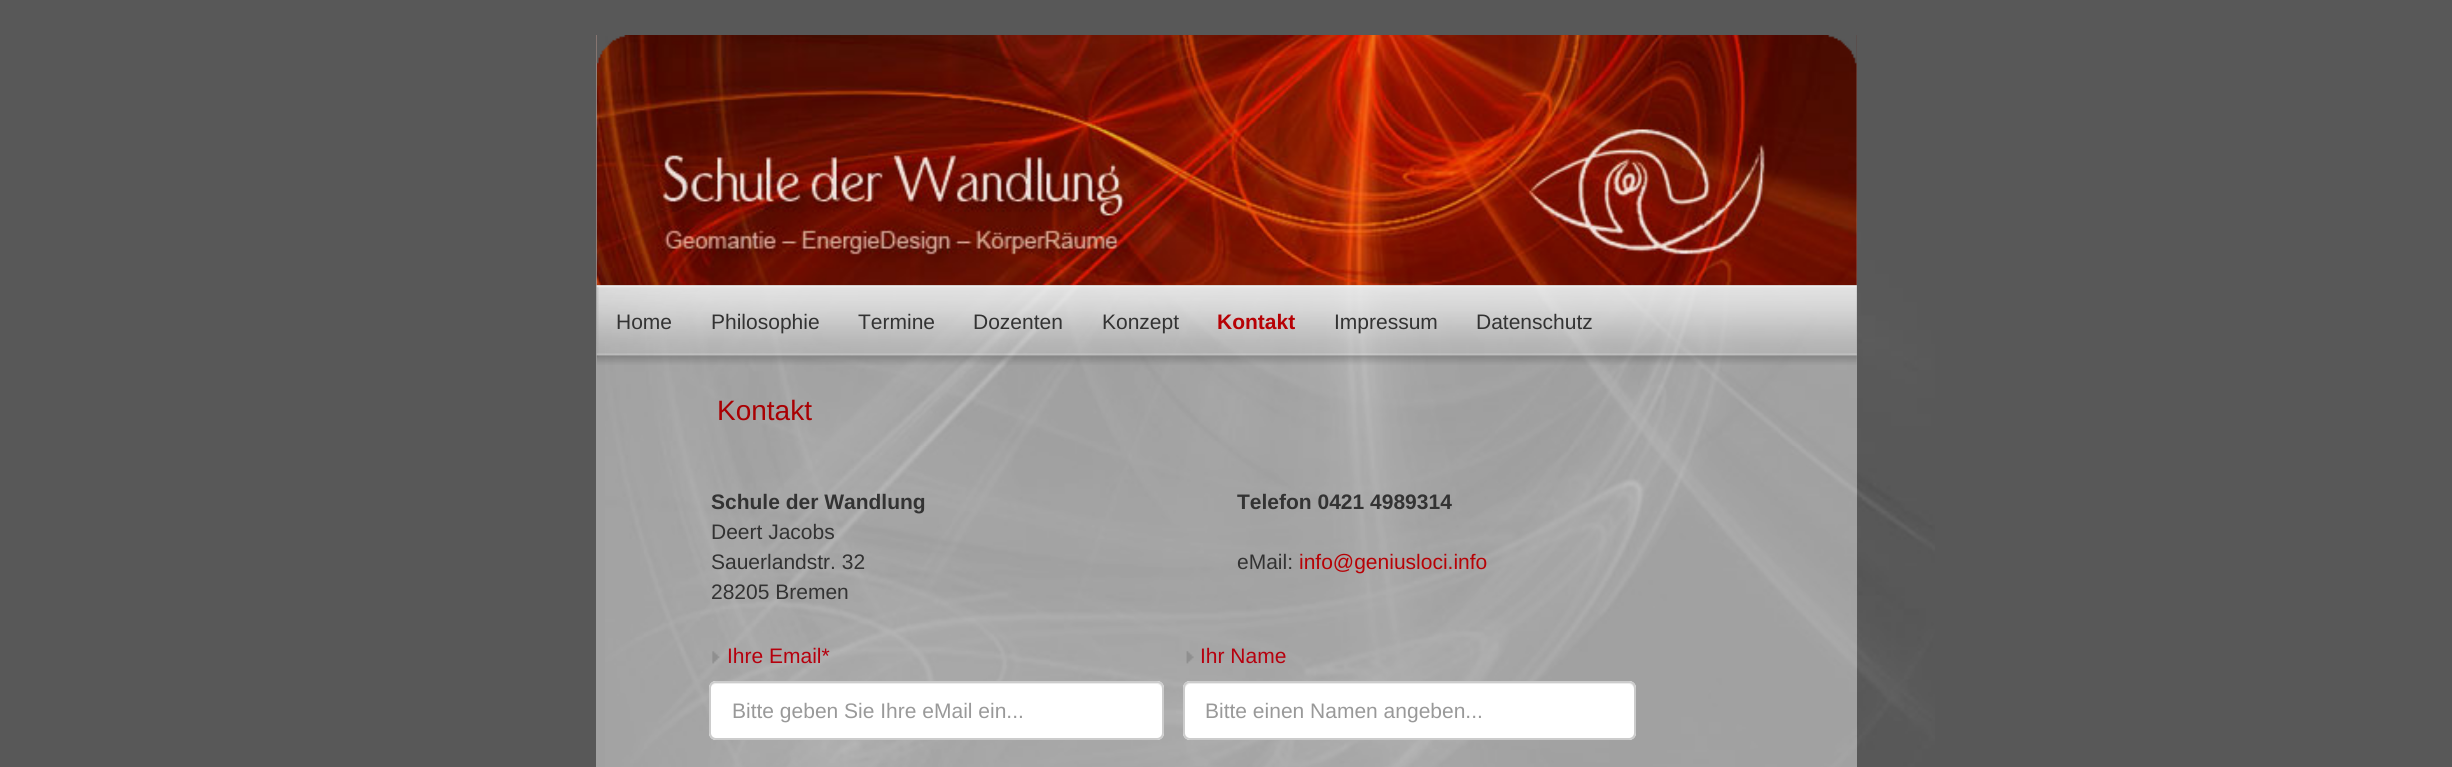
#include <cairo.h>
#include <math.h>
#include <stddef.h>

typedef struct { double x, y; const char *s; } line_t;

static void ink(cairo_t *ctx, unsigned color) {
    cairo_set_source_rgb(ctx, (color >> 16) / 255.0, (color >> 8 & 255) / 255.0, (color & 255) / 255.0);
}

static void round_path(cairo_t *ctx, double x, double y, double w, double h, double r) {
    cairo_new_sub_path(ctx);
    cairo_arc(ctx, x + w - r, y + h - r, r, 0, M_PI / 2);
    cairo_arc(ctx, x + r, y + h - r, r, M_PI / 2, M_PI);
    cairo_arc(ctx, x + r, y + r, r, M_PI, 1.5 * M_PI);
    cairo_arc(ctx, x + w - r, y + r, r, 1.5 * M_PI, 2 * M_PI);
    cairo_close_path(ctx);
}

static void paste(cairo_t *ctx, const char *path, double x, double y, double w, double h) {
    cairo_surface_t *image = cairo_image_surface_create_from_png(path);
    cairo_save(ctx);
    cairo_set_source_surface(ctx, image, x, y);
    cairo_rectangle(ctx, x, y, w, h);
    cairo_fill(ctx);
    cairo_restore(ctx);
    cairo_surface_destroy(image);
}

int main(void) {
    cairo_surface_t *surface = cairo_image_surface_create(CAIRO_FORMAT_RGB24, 2452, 767);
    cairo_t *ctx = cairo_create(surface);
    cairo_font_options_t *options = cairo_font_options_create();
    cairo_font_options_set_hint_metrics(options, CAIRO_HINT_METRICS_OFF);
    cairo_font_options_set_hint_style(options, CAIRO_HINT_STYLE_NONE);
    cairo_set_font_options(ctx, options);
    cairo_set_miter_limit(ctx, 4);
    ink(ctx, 0x585858);
    cairo_paint(ctx);
    ink(ctx, 0xA1A1A1);
    cairo_rectangle(ctx, 596, 35, 1261, 732);
    cairo_fill(ctx);
    paste(ctx, "media/1.png", 605, 95, 1330, 672);
    paste(ctx, "media/2.png", 596, 35, 1261, 251);
    paste(ctx, "media/3.png", 1828, 35, 29, 29);
    paste(ctx, "media/4.png", 596, 35, 30, 29);
    paste(ctx, "media/5.png", 596, 285, 1261, 80);
    cairo_select_font_face(ctx, "Liberation Sans", CAIRO_FONT_SLANT_NORMAL, CAIRO_FONT_WEIGHT_NORMAL);
    cairo_set_font_size(ctx, 21);
    ink(ctx, 0x333333);
    {
        static const line_t items[] = {
            {616, 329, "Home"},
            {711, 329, "Philosophie"},
            {858, 329, "Termine"},
            {973, 329, "Dozenten"},
            {1102, 329, "Konzept"},
        };
        for (size_t i = 0; i < sizeof items / sizeof *items; i++) {
            cairo_move_to(ctx, items[i].x, items[i].y);
            cairo_show_text(ctx, items[i].s);
        }
    }
    cairo_select_font_face(ctx, "Liberation Sans", CAIRO_FONT_SLANT_NORMAL, CAIRO_FONT_WEIGHT_BOLD);
    ink(ctx, 0xB70105);
    cairo_move_to(ctx, 1217, 329);
    cairo_show_text(ctx, "Kontakt");
    cairo_select_font_face(ctx, "Liberation Sans", CAIRO_FONT_SLANT_NORMAL, CAIRO_FONT_WEIGHT_NORMAL);
    ink(ctx, 0x333333);
    cairo_move_to(ctx, 1334, 329);
    cairo_show_text(ctx, "Impressum");
    cairo_move_to(ctx, 1476, 329);
    cairo_show_text(ctx, "Datenschutz");
    cairo_set_font_size(ctx, 28);
    ink(ctx, 0xA90003);
    cairo_move_to(ctx, 717, 420);
    cairo_show_text(ctx, "Kontakt");
    cairo_select_font_face(ctx, "Liberation Sans", CAIRO_FONT_SLANT_NORMAL, CAIRO_FONT_WEIGHT_BOLD);
    cairo_set_font_size(ctx, 21);
    ink(ctx, 0x333333);
    cairo_move_to(ctx, 711, 509);
    cairo_show_text(ctx, "Schule der Wandlung");
    cairo_select_font_face(ctx, "Liberation Sans", CAIRO_FONT_SLANT_NORMAL, CAIRO_FONT_WEIGHT_NORMAL);
    {
        static const line_t items[] = {
            {711, 539, "Deert Jacobs"},
            {711, 569, "Sauerlandstr. 32"},
            {711, 599, "28205 Bremen"},
        };
        for (size_t i = 0; i < sizeof items / sizeof *items; i++) {
            cairo_move_to(ctx, items[i].x, items[i].y);
            cairo_show_text(ctx, items[i].s);
        }
    }
    cairo_select_font_face(ctx, "Liberation Sans", CAIRO_FONT_SLANT_NORMAL, CAIRO_FONT_WEIGHT_BOLD);
    cairo_move_to(ctx, 1237, 509);
    cairo_show_text(ctx, "Telefon 0421 4989314");
    cairo_select_font_face(ctx, "Liberation Sans", CAIRO_FONT_SLANT_NORMAL, CAIRO_FONT_WEIGHT_NORMAL);
    cairo_move_to(ctx, 1237, 569);
    cairo_show_text(ctx, "eMail:");
    ink(ctx, 0xB70105);
    cairo_move_to(ctx, 1299, 569);
    cairo_show_text(ctx, "info@geniusloci.info");
    paste(ctx, "media/6.png", 712, 651, 8, 13);
    ink(ctx, 0xB6000D);
    cairo_move_to(ctx, 727, 663);
    cairo_show_text(ctx, "Ihre Email*");
    ink(ctx, 0xFFFFFF);
    round_path(ctx, 709, 681, 455, 59, 7);
    cairo_fill(ctx);
    ink(ctx, 0xECECEC);
    cairo_new_path(ctx);
    cairo_move_to(ctx, 716, 684);
    cairo_line_to(ctx, 1157, 684);
    cairo_curve_to(ctx, 1160, 684, 1162, 687, 1162, 690);
    cairo_line_to(ctx, 1162, 688);
    cairo_curve_to(ctx, 1162, 685, 1160, 683, 1157, 683);
    cairo_line_to(ctx, 716, 683);
    cairo_curve_to(ctx, 714, 683, 712, 685, 711, 687);
    cairo_curve_to(ctx, 712, 685, 714, 684, 716, 684);
    cairo_close_path(ctx);
    cairo_fill(ctx);
    round_path(ctx, 710, 682, 453, 57, 6);
    ink(ctx, 0xCCCCCC);
    cairo_stroke(ctx);
    ink(ctx, 0x999999);
    cairo_move_to(ctx, 732, 718);
    cairo_show_text(ctx, "Bitte geben Sie Ihre eMail ein...");
    paste(ctx, "media/7.png", 1186, 651, 8, 13);
    ink(ctx, 0xB6000D);
    cairo_move_to(ctx, 1200, 663);
    cairo_show_text(ctx, "Ihr Name");
    ink(ctx, 0xFFFFFF);
    round_path(ctx, 1183, 681, 453, 59, 7);
    cairo_fill(ctx);
    ink(ctx, 0xECECEC);
    cairo_new_path(ctx);
    cairo_move_to(ctx, 1190, 684);
    cairo_line_to(ctx, 1629, 684);
    cairo_curve_to(ctx, 1632, 684, 1634, 687, 1634, 690);
    cairo_line_to(ctx, 1634, 735);
    cairo_line_to(ctx, 1633, 738);
    cairo_curve_to(ctx, 1634, 737, 1635, 735, 1635, 734);
    cairo_line_to(ctx, 1635, 688);
    cairo_curve_to(ctx, 1635, 685, 1633, 683, 1630, 683);
    cairo_line_to(ctx, 1190, 683);
    cairo_curve_to(ctx, 1187, 683, 1185, 685, 1185, 688);
    cairo_line_to(ctx, 1185, 690);
    cairo_curve_to(ctx, 1185, 687, 1187, 684, 1190, 684);
    cairo_close_path(ctx);
    cairo_fill(ctx);
    round_path(ctx, 1184, 682, 451, 57, 6);
    ink(ctx, 0xCCCCCC);
    cairo_stroke(ctx);
    ink(ctx, 0x999999);
    cairo_move_to(ctx, 1205, 718);
    cairo_show_text(ctx, "Bitte einen Namen angeben...");
    cairo_surface_write_to_png(surface, "image.png");
    cairo_font_options_destroy(options);
    cairo_destroy(ctx);
    cairo_surface_destroy(surface);
    return 0;
}
